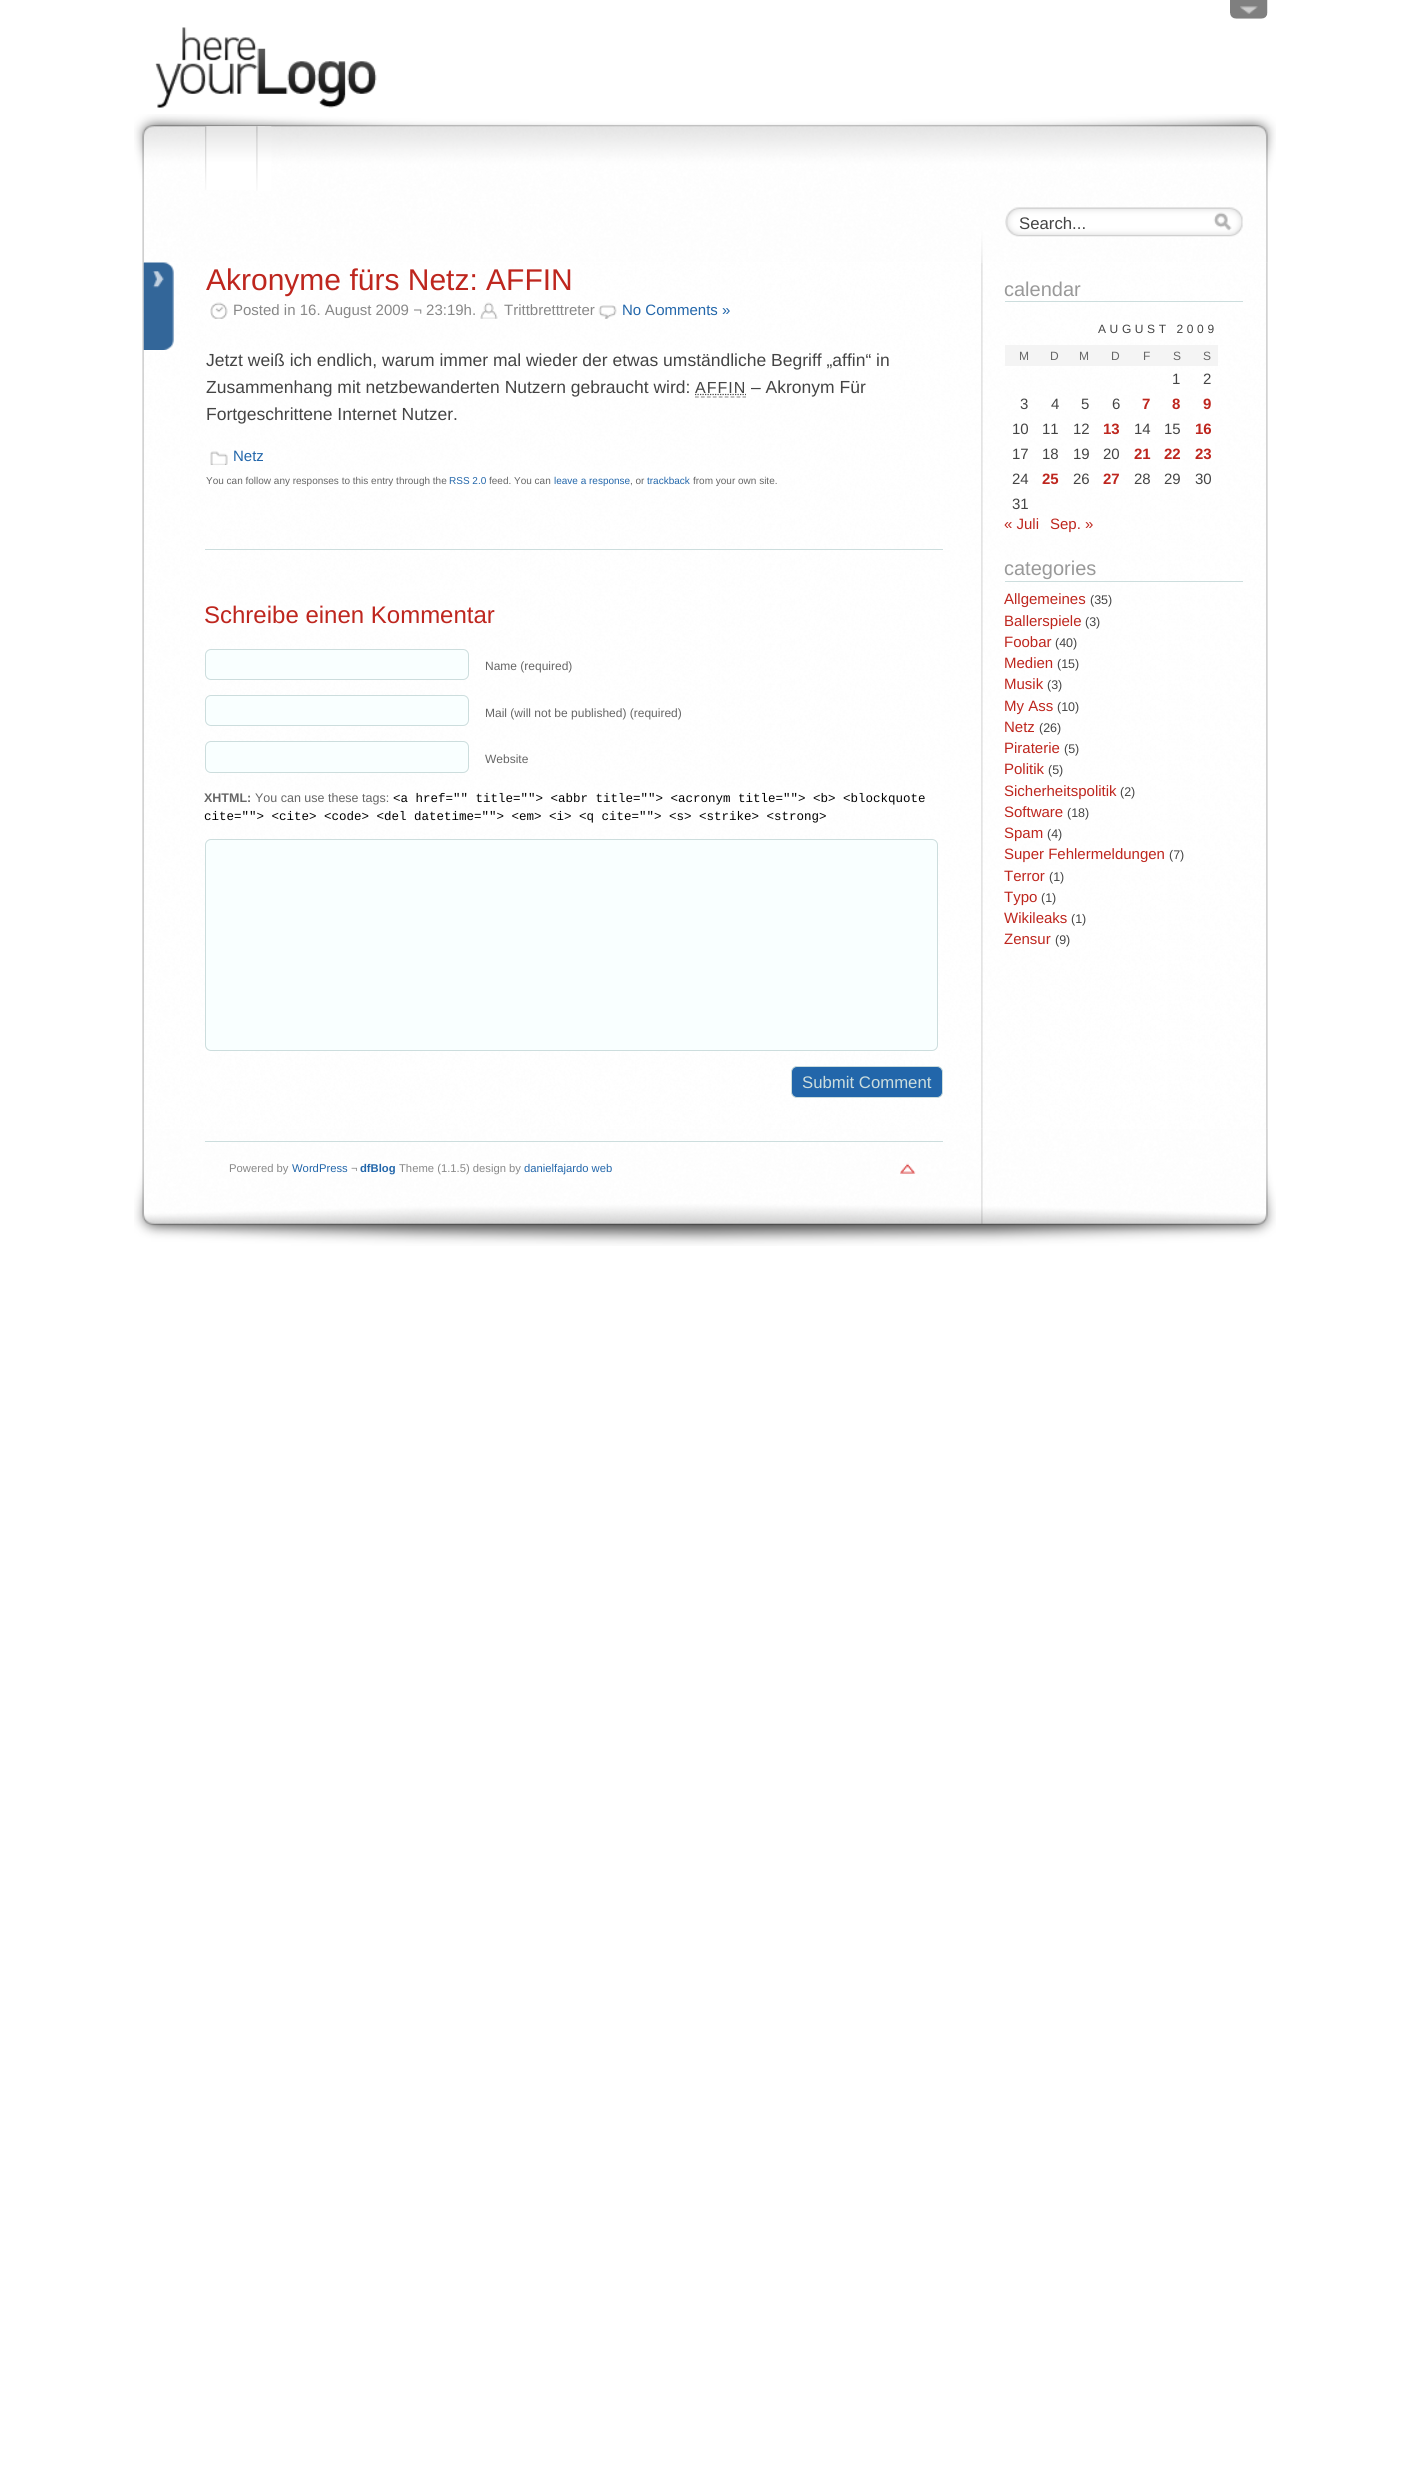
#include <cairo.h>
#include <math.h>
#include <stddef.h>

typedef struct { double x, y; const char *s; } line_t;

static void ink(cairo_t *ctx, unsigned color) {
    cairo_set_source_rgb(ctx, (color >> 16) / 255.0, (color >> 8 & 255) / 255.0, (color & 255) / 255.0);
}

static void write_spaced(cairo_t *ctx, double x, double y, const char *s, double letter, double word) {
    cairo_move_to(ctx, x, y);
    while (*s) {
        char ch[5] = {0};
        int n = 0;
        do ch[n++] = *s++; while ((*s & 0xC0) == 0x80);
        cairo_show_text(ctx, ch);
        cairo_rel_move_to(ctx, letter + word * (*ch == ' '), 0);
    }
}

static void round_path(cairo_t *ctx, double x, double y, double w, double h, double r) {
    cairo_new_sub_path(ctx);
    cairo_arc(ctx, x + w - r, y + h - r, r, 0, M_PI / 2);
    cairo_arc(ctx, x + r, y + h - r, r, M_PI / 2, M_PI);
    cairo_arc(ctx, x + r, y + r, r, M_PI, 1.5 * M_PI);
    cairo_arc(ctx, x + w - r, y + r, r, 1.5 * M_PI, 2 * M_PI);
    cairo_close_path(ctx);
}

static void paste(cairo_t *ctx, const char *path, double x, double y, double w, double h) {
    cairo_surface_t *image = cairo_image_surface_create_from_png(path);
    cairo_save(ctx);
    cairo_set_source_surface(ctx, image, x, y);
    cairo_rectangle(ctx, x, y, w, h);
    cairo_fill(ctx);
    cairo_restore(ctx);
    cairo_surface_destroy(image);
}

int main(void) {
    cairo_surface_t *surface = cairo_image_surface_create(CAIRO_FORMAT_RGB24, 1408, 2476);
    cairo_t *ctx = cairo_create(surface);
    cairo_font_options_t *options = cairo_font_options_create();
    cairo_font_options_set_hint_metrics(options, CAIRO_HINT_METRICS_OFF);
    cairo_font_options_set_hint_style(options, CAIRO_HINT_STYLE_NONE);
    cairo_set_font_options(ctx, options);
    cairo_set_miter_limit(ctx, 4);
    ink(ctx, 0xFFFFFF);
    cairo_paint(ctx);
    paste(ctx, "media/1.png", 134, 114, 1142, 149);
    paste(ctx, "media/2.png", 1230, 0, 38, 19);
    paste(ctx, "media/3.png", 1240, 6, 18, 8);
    paste(ctx, "media/4.png", 155, 27, 222, 81);
    paste(ctx, "media/5.png", 205, 126, 60, 64);
    paste(ctx, "media/6.png", 256, 126, 16, 65);
    paste(ctx, "media/7.png", 1005, 207, 238, 30);
    cairo_select_font_face(ctx, "Liberation Sans", CAIRO_FONT_SLANT_NORMAL, CAIRO_FONT_WEIGHT_NORMAL);
    cairo_set_font_size(ctx, 16.75);
    ink(ctx, 0x444444);
    cairo_move_to(ctx, 1019, 229);
    cairo_show_text(ctx, "Search...");
    paste(ctx, "media/8.png", 142, 262, 1126, 867);
    paste(ctx, "media/9.png", 143, 262, 31, 88);
    cairo_set_font_size(ctx, 30);
    ink(ctx, 0xBE261E);
    cairo_move_to(ctx, 206, 290);
    cairo_show_text(ctx, "Akronyme fürs Netz: AFFIN");
    paste(ctx, "media/10.png", 210, 302, 18, 17);
    cairo_set_font_size(ctx, 15);
    ink(ctx, 0x888888);
    cairo_move_to(ctx, 233, 315);
    cairo_show_text(ctx, "Posted in 16. August 2009 ¬ 23:19h.");
    paste(ctx, "media/11.png", 480, 302, 18, 17);
    cairo_move_to(ctx, 504, 315);
    cairo_show_text(ctx, "Trittbretttreter");
    paste(ctx, "media/12.png", 598, 305, 19, 14);
    ink(ctx, 0x2266AA);
    cairo_move_to(ctx, 622, 315);
    cairo_show_text(ctx, "No Comments »");
    cairo_set_font_size(ctx, 17.5);
    ink(ctx, 0x444444);
    cairo_move_to(ctx, 206, 366);
    cairo_show_text(ctx, "Jetzt weiß ich endlich, warum immer mal wieder der etwas umständliche Begriff „affin“ in");
    cairo_move_to(ctx, 206, 393);
    cairo_show_text(ctx, "Zusammenhang mit netzbewanderten Nutzern gebraucht wird:");
    cairo_set_font_size(ctx, 16);
    write_spaced(ctx, 695, 393, "AFFIN", 1, 0);
    cairo_new_path(ctx);
    cairo_move_to(ctx, 695, 397);
    cairo_line_to(ctx, 746, 397);
    ink(ctx, 0x999999);
    cairo_set_line_width(ctx, 1.2);
    cairo_set_dash(ctx, (double[]){3.75, 2.19}, 2, 0);
    cairo_stroke(ctx);
    cairo_new_path(ctx);
    cairo_move_to(ctx, 695, 394.5);
    cairo_line_to(ctx, 746, 394.5);
    ink(ctx, 0x444444);
    cairo_set_dash(ctx, (double[]){1.25, 1.25}, 2, 0);
    cairo_stroke(ctx);
    cairo_set_font_size(ctx, 17.5);
    cairo_move_to(ctx, 751, 393);
    cairo_show_text(ctx, "– Akronym Für");
    cairo_move_to(ctx, 206, 420);
    cairo_show_text(ctx, "Fortgeschrittene Internet Nutzer.");
    paste(ctx, "media/13.png", 210, 451, 18, 14);
    cairo_set_font_size(ctx, 15);
    ink(ctx, 0x2266AA);
    cairo_move_to(ctx, 233, 461);
    cairo_show_text(ctx, "Netz");
    cairo_set_font_size(ctx, 10);
    ink(ctx, 0x666666);
    cairo_move_to(ctx, 206, 484);
    cairo_show_text(ctx, "You can follow any responses to this entry through the");
    ink(ctx, 0x2266AA);
    cairo_move_to(ctx, 449, 484);
    cairo_show_text(ctx, "RSS 2.0");
    ink(ctx, 0x666666);
    cairo_move_to(ctx, 489, 484);
    cairo_show_text(ctx, "feed. You can");
    ink(ctx, 0x2266AA);
    cairo_move_to(ctx, 554, 484);
    cairo_show_text(ctx, "leave a response");
    ink(ctx, 0x666666);
    cairo_move_to(ctx, 630, 484);
    cairo_show_text(ctx, ", or");
    ink(ctx, 0x2266AA);
    cairo_move_to(ctx, 647, 484);
    cairo_show_text(ctx, "trackback");
    ink(ctx, 0x666666);
    cairo_move_to(ctx, 693, 484);
    cairo_show_text(ctx, "from your own site.");
    ink(ctx, 0xCCDDDD);
    cairo_rectangle(ctx, 205, 549, 738, 1);
    cairo_fill(ctx);
    cairo_set_font_size(ctx, 24);
    ink(ctx, 0xBE261E);
    cairo_move_to(ctx, 204, 623);
    cairo_show_text(ctx, "Schreibe einen Kommentar");
    ink(ctx, 0xF9FFFF);
    round_path(ctx, 205.5, 649.5, 263, 30, 5.5);
    cairo_fill_preserve(ctx);
    ink(ctx, 0xCCDDDD);
    cairo_set_line_width(ctx, 1);
    cairo_set_dash(ctx, NULL, 0, 0);
    cairo_stroke(ctx);
    cairo_set_font_size(ctx, 12);
    ink(ctx, 0x666666);
    cairo_move_to(ctx, 485, 670);
    cairo_show_text(ctx, "Name (required)");
    ink(ctx, 0xF9FFFF);
    round_path(ctx, 205.5, 695.5, 263, 30, 5.5);
    cairo_fill_preserve(ctx);
    ink(ctx, 0xCCDDDD);
    cairo_stroke(ctx);
    ink(ctx, 0x666666);
    cairo_move_to(ctx, 485, 717);
    cairo_show_text(ctx, "Mail (will not be published) (required)");
    ink(ctx, 0xF9FFFF);
    round_path(ctx, 205.5, 741.5, 263, 31, 5.5);
    cairo_fill_preserve(ctx);
    ink(ctx, 0xCCDDDD);
    cairo_stroke(ctx);
    ink(ctx, 0x666666);
    cairo_move_to(ctx, 485, 763);
    cairo_show_text(ctx, "Website");
    cairo_select_font_face(ctx, "Liberation Sans", CAIRO_FONT_SLANT_NORMAL, CAIRO_FONT_WEIGHT_BOLD);
    cairo_set_font_size(ctx, 12.5);
    cairo_move_to(ctx, 204, 802);
    cairo_show_text(ctx, "XHTML:");
    cairo_select_font_face(ctx, "Liberation Sans", CAIRO_FONT_SLANT_NORMAL, CAIRO_FONT_WEIGHT_NORMAL);
    cairo_move_to(ctx, 255, 802);
    cairo_show_text(ctx, "You can use these tags:");
    cairo_select_font_face(ctx, "Liberation Mono", CAIRO_FONT_SLANT_NORMAL, CAIRO_FONT_WEIGHT_NORMAL);
    ink(ctx, 0x000000);
    cairo_move_to(ctx, 393, 802);
    cairo_show_text(ctx, "<a href=\"\" title=\"\"> <abbr title=\"\"> <acronym title=\"\"> <b> <blockquote");
    cairo_move_to(ctx, 204, 820);
    cairo_show_text(ctx, "cite=\"\"> <cite> <code> <del datetime=\"\"> <em> <i> <q cite=\"\"> <s> <strike> <strong>");
    ink(ctx, 0xF9FFFF);
    round_path(ctx, 205.5, 839.5, 732, 211, 5.5);
    cairo_fill_preserve(ctx);
    ink(ctx, 0xCCDDDD);
    cairo_stroke(ctx);
    ink(ctx, 0x2266AA);
    round_path(ctx, 791.5, 1066.5, 151, 31, 5.5);
    cairo_fill_preserve(ctx);
    ink(ctx, 0xCCDDDD);
    cairo_stroke(ctx);
    cairo_select_font_face(ctx, "Liberation Sans", CAIRO_FONT_SLANT_NORMAL, CAIRO_FONT_WEIGHT_NORMAL);
    cairo_set_font_size(ctx, 16.75);
    cairo_move_to(ctx, 802, 1088);
    cairo_show_text(ctx, "Submit Comment");
    cairo_rectangle(ctx, 1005, 301, 238, 1);
    cairo_fill(ctx);
    cairo_set_font_size(ctx, 20);
    ink(ctx, 0x999999);
    cairo_move_to(ctx, 1004, 296);
    cairo_show_text(ctx, "calendar");
    cairo_set_font_size(ctx, 12);
    ink(ctx, 0x444444);
    write_spaced(ctx, 1098, 333, "AUGUST 2009", 3.6, 0);
    ink(ctx, 0xF4F4F4);
    cairo_rectangle(ctx, 1005, 345, 213, 21);
    cairo_fill(ctx);
    ink(ctx, 0x666666);
    {
        static const line_t items[] = {
            {1019, 360, "M"},
            {1050, 360, "D"},
            {1079, 360, "M"},
            {1111, 360, "D"},
            {1143, 360, "F"},
            {1173, 360, "S"},
            {1203, 360, "S"},
        };
        for (size_t i = 0; i < sizeof items / sizeof *items; i++) {
            cairo_move_to(ctx, items[i].x, items[i].y);
            cairo_show_text(ctx, items[i].s);
        }
    }
    cairo_set_font_size(ctx, 15);
    ink(ctx, 0x444444);
    {
        static const line_t items[] = {
            {1172, 384, "1"},
            {1203, 384, "2"},
            {1020, 409, "3"},
            {1051, 409, "4"},
            {1081, 409, "5"},
            {1112, 409, "6"},
        };
        for (size_t i = 0; i < sizeof items / sizeof *items; i++) {
            cairo_move_to(ctx, items[i].x, items[i].y);
            cairo_show_text(ctx, items[i].s);
        }
    }
    cairo_select_font_face(ctx, "Liberation Sans", CAIRO_FONT_SLANT_NORMAL, CAIRO_FONT_WEIGHT_BOLD);
    ink(ctx, 0xBE261E);
    {
        static const line_t items[] = {
            {1142, 409, "7"},
            {1172, 409, "8"},
            {1203, 409, "9"},
        };
        for (size_t i = 0; i < sizeof items / sizeof *items; i++) {
            cairo_move_to(ctx, items[i].x, items[i].y);
            cairo_show_text(ctx, items[i].s);
        }
    }
    cairo_select_font_face(ctx, "Liberation Sans", CAIRO_FONT_SLANT_NORMAL, CAIRO_FONT_WEIGHT_NORMAL);
    ink(ctx, 0x444444);
    {
        static const line_t items[] = {
            {1012, 434, "10"},
            {1042, 434, "11"},
            {1073, 434, "12"},
        };
        for (size_t i = 0; i < sizeof items / sizeof *items; i++) {
            cairo_move_to(ctx, items[i].x, items[i].y);
            cairo_show_text(ctx, items[i].s);
        }
    }
    cairo_select_font_face(ctx, "Liberation Sans", CAIRO_FONT_SLANT_NORMAL, CAIRO_FONT_WEIGHT_BOLD);
    ink(ctx, 0xBE261E);
    cairo_move_to(ctx, 1103, 434);
    cairo_show_text(ctx, "13");
    cairo_select_font_face(ctx, "Liberation Sans", CAIRO_FONT_SLANT_NORMAL, CAIRO_FONT_WEIGHT_NORMAL);
    ink(ctx, 0x444444);
    cairo_move_to(ctx, 1134, 434);
    cairo_show_text(ctx, "14");
    cairo_move_to(ctx, 1164, 434);
    cairo_show_text(ctx, "15");
    cairo_select_font_face(ctx, "Liberation Sans", CAIRO_FONT_SLANT_NORMAL, CAIRO_FONT_WEIGHT_BOLD);
    ink(ctx, 0xBE261E);
    cairo_move_to(ctx, 1195, 434);
    cairo_show_text(ctx, "16");
    cairo_select_font_face(ctx, "Liberation Sans", CAIRO_FONT_SLANT_NORMAL, CAIRO_FONT_WEIGHT_NORMAL);
    ink(ctx, 0x444444);
    {
        static const line_t items[] = {
            {1012, 459, "17"},
            {1042, 459, "18"},
            {1073, 459, "19"},
            {1103, 459, "20"},
        };
        for (size_t i = 0; i < sizeof items / sizeof *items; i++) {
            cairo_move_to(ctx, items[i].x, items[i].y);
            cairo_show_text(ctx, items[i].s);
        }
    }
    cairo_select_font_face(ctx, "Liberation Sans", CAIRO_FONT_SLANT_NORMAL, CAIRO_FONT_WEIGHT_BOLD);
    ink(ctx, 0xBE261E);
    {
        static const line_t items[] = {
            {1134, 459, "21"},
            {1164, 459, "22"},
            {1195, 459, "23"},
        };
        for (size_t i = 0; i < sizeof items / sizeof *items; i++) {
            cairo_move_to(ctx, items[i].x, items[i].y);
            cairo_show_text(ctx, items[i].s);
        }
    }
    cairo_select_font_face(ctx, "Liberation Sans", CAIRO_FONT_SLANT_NORMAL, CAIRO_FONT_WEIGHT_NORMAL);
    ink(ctx, 0x444444);
    cairo_move_to(ctx, 1012, 484);
    cairo_show_text(ctx, "24");
    cairo_select_font_face(ctx, "Liberation Sans", CAIRO_FONT_SLANT_NORMAL, CAIRO_FONT_WEIGHT_BOLD);
    ink(ctx, 0xBE261E);
    cairo_move_to(ctx, 1042, 484);
    cairo_show_text(ctx, "25");
    cairo_select_font_face(ctx, "Liberation Sans", CAIRO_FONT_SLANT_NORMAL, CAIRO_FONT_WEIGHT_NORMAL);
    ink(ctx, 0x444444);
    cairo_move_to(ctx, 1073, 484);
    cairo_show_text(ctx, "26");
    cairo_select_font_face(ctx, "Liberation Sans", CAIRO_FONT_SLANT_NORMAL, CAIRO_FONT_WEIGHT_BOLD);
    ink(ctx, 0xBE261E);
    cairo_move_to(ctx, 1103, 484);
    cairo_show_text(ctx, "27");
    cairo_select_font_face(ctx, "Liberation Sans", CAIRO_FONT_SLANT_NORMAL, CAIRO_FONT_WEIGHT_NORMAL);
    ink(ctx, 0x444444);
    {
        static const line_t items[] = {
            {1134, 484, "28"},
            {1164, 484, "29"},
            {1195, 484, "30"},
            {1012, 509, "31"},
        };
        for (size_t i = 0; i < sizeof items / sizeof *items; i++) {
            cairo_move_to(ctx, items[i].x, items[i].y);
            cairo_show_text(ctx, items[i].s);
        }
    }
    ink(ctx, 0xBE261E);
    cairo_move_to(ctx, 1004, 529);
    cairo_show_text(ctx, "« Juli");
    cairo_move_to(ctx, 1050, 529);
    cairo_show_text(ctx, "Sep. »");
    ink(ctx, 0xCCDDDD);
    cairo_rectangle(ctx, 1005, 581, 238, 1);
    cairo_fill(ctx);
    cairo_set_font_size(ctx, 20);
    ink(ctx, 0x999999);
    cairo_move_to(ctx, 1004, 575);
    cairo_show_text(ctx, "categories");
    cairo_set_font_size(ctx, 15);
    ink(ctx, 0xBE261E);
    cairo_move_to(ctx, 1004, 604);
    cairo_show_text(ctx, "Allgemeines");
    cairo_set_font_size(ctx, 12.5);
    ink(ctx, 0x444444);
    cairo_move_to(ctx, 1090, 604);
    cairo_show_text(ctx, "(35)");
    cairo_set_font_size(ctx, 15);
    ink(ctx, 0xBE261E);
    cairo_move_to(ctx, 1004, 626);
    cairo_show_text(ctx, "Ballerspiele");
    cairo_set_font_size(ctx, 12.5);
    ink(ctx, 0x444444);
    cairo_move_to(ctx, 1085, 626);
    cairo_show_text(ctx, "(3)");
    cairo_set_font_size(ctx, 15);
    ink(ctx, 0xBE261E);
    cairo_move_to(ctx, 1004, 647);
    cairo_show_text(ctx, "Foobar");
    cairo_set_font_size(ctx, 12.5);
    ink(ctx, 0x444444);
    cairo_move_to(ctx, 1055, 647);
    cairo_show_text(ctx, "(40)");
    cairo_set_font_size(ctx, 15);
    ink(ctx, 0xBE261E);
    cairo_move_to(ctx, 1004, 668);
    cairo_show_text(ctx, "Medien");
    cairo_set_font_size(ctx, 12.5);
    ink(ctx, 0x444444);
    cairo_move_to(ctx, 1057, 668);
    cairo_show_text(ctx, "(15)");
    cairo_set_font_size(ctx, 15);
    ink(ctx, 0xBE261E);
    cairo_move_to(ctx, 1004, 689);
    cairo_show_text(ctx, "Musik");
    cairo_set_font_size(ctx, 12.5);
    ink(ctx, 0x444444);
    cairo_move_to(ctx, 1047, 689);
    cairo_show_text(ctx, "(3)");
    cairo_set_font_size(ctx, 15);
    ink(ctx, 0xBE261E);
    cairo_move_to(ctx, 1004, 711);
    cairo_show_text(ctx, "My Ass");
    cairo_set_font_size(ctx, 12.5);
    ink(ctx, 0x444444);
    cairo_move_to(ctx, 1057, 711);
    cairo_show_text(ctx, "(10)");
    cairo_set_font_size(ctx, 15);
    ink(ctx, 0xBE261E);
    cairo_move_to(ctx, 1004, 732);
    cairo_show_text(ctx, "Netz");
    cairo_set_font_size(ctx, 12.5);
    ink(ctx, 0x444444);
    cairo_move_to(ctx, 1039, 732);
    cairo_show_text(ctx, "(26)");
    cairo_set_font_size(ctx, 15);
    ink(ctx, 0xBE261E);
    cairo_move_to(ctx, 1004, 753);
    cairo_show_text(ctx, "Piraterie");
    cairo_set_font_size(ctx, 12.5);
    ink(ctx, 0x444444);
    cairo_move_to(ctx, 1064, 753);
    cairo_show_text(ctx, "(5)");
    cairo_set_font_size(ctx, 15);
    ink(ctx, 0xBE261E);
    cairo_move_to(ctx, 1004, 774);
    cairo_show_text(ctx, "Politik");
    cairo_set_font_size(ctx, 12.5);
    ink(ctx, 0x444444);
    cairo_move_to(ctx, 1048, 774);
    cairo_show_text(ctx, "(5)");
    cairo_set_font_size(ctx, 15);
    ink(ctx, 0xBE261E);
    cairo_move_to(ctx, 1004, 796);
    cairo_show_text(ctx, "Sicherheitspolitik");
    cairo_set_font_size(ctx, 12.5);
    ink(ctx, 0x444444);
    cairo_move_to(ctx, 1120, 796);
    cairo_show_text(ctx, "(2)");
    cairo_set_font_size(ctx, 15);
    ink(ctx, 0xBE261E);
    cairo_move_to(ctx, 1004, 817);
    cairo_show_text(ctx, "Software");
    cairo_set_font_size(ctx, 12.5);
    ink(ctx, 0x444444);
    cairo_move_to(ctx, 1067, 817);
    cairo_show_text(ctx, "(18)");
    cairo_set_font_size(ctx, 15);
    ink(ctx, 0xBE261E);
    cairo_move_to(ctx, 1004, 838);
    cairo_show_text(ctx, "Spam");
    cairo_set_font_size(ctx, 12.5);
    ink(ctx, 0x444444);
    cairo_move_to(ctx, 1047, 838);
    cairo_show_text(ctx, "(4)");
    cairo_set_font_size(ctx, 15);
    ink(ctx, 0xBE261E);
    cairo_move_to(ctx, 1004, 859);
    cairo_show_text(ctx, "Super Fehlermeldungen");
    cairo_set_font_size(ctx, 12.5);
    ink(ctx, 0x444444);
    cairo_move_to(ctx, 1169, 859);
    cairo_show_text(ctx, "(7)");
    cairo_set_font_size(ctx, 15);
    ink(ctx, 0xBE261E);
    cairo_move_to(ctx, 1004, 881);
    cairo_show_text(ctx, "Terror");
    cairo_set_font_size(ctx, 12.5);
    ink(ctx, 0x444444);
    cairo_move_to(ctx, 1049, 881);
    cairo_show_text(ctx, "(1)");
    cairo_set_font_size(ctx, 15);
    ink(ctx, 0xBE261E);
    cairo_move_to(ctx, 1004, 902);
    cairo_show_text(ctx, "Typo");
    cairo_set_font_size(ctx, 12.5);
    ink(ctx, 0x444444);
    cairo_move_to(ctx, 1041, 902);
    cairo_show_text(ctx, "(1)");
    cairo_set_font_size(ctx, 15);
    ink(ctx, 0xBE261E);
    cairo_move_to(ctx, 1004, 923);
    cairo_show_text(ctx, "Wikileaks");
    cairo_set_font_size(ctx, 12.5);
    ink(ctx, 0x444444);
    cairo_move_to(ctx, 1071, 923);
    cairo_show_text(ctx, "(1)");
    cairo_set_font_size(ctx, 15);
    ink(ctx, 0xBE261E);
    cairo_move_to(ctx, 1004, 944);
    cairo_show_text(ctx, "Zensur");
    cairo_set_font_size(ctx, 12.5);
    ink(ctx, 0x444444);
    cairo_move_to(ctx, 1055, 944);
    cairo_show_text(ctx, "(9)");
    paste(ctx, "media/14.png", 134, 1128, 1142, 118);
    ink(ctx, 0xCCDDDD);
    cairo_rectangle(ctx, 205, 1141, 738, 1);
    cairo_fill(ctx);
    cairo_set_font_size(ctx, 11.25);
    ink(ctx, 0x888888);
    cairo_move_to(ctx, 229, 1172);
    cairo_show_text(ctx, "Powered by");
    ink(ctx, 0x2266AA);
    cairo_move_to(ctx, 292, 1172);
    cairo_show_text(ctx, "WordPress");
    ink(ctx, 0x888888);
    cairo_move_to(ctx, 351, 1172);
    cairo_show_text(ctx, "¬");
    cairo_select_font_face(ctx, "Liberation Sans", CAIRO_FONT_SLANT_NORMAL, CAIRO_FONT_WEIGHT_BOLD);
    ink(ctx, 0x2266AA);
    cairo_move_to(ctx, 360, 1172);
    cairo_show_text(ctx, "dfBlog");
    cairo_select_font_face(ctx, "Liberation Sans", CAIRO_FONT_SLANT_NORMAL, CAIRO_FONT_WEIGHT_NORMAL);
    ink(ctx, 0x888888);
    cairo_move_to(ctx, 399, 1172);
    cairo_show_text(ctx, "Theme (1.1.5) design by");
    ink(ctx, 0x2266AA);
    cairo_move_to(ctx, 524, 1172);
    cairo_show_text(ctx, "danielfajardo web");
    paste(ctx, "media/15.png", 900, 1163, 16, 11);
    cairo_surface_write_to_png(surface, "image.png");
    cairo_font_options_destroy(options);
    cairo_destroy(ctx);
    cairo_surface_destroy(surface);
    return 0;
}
